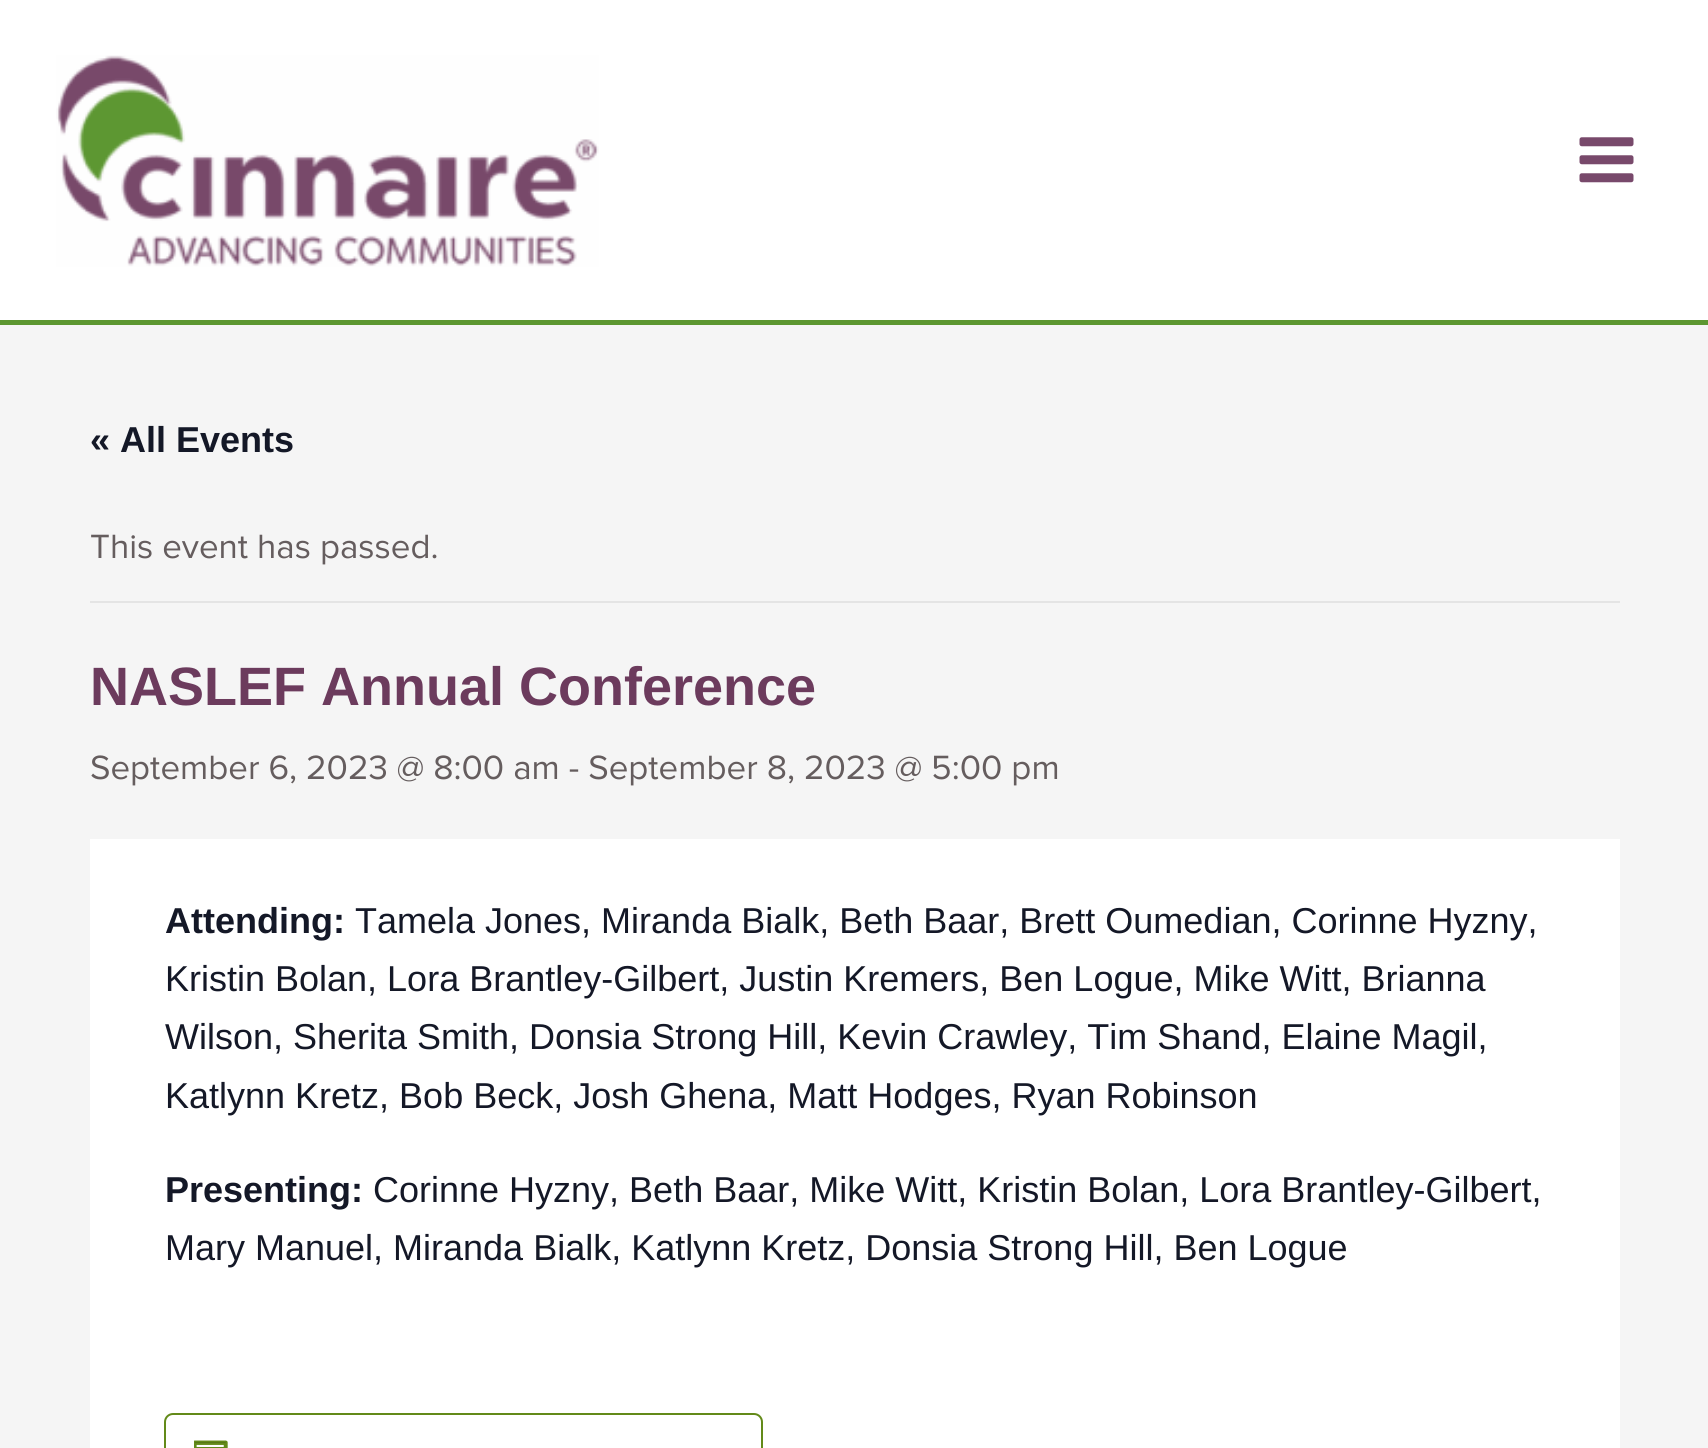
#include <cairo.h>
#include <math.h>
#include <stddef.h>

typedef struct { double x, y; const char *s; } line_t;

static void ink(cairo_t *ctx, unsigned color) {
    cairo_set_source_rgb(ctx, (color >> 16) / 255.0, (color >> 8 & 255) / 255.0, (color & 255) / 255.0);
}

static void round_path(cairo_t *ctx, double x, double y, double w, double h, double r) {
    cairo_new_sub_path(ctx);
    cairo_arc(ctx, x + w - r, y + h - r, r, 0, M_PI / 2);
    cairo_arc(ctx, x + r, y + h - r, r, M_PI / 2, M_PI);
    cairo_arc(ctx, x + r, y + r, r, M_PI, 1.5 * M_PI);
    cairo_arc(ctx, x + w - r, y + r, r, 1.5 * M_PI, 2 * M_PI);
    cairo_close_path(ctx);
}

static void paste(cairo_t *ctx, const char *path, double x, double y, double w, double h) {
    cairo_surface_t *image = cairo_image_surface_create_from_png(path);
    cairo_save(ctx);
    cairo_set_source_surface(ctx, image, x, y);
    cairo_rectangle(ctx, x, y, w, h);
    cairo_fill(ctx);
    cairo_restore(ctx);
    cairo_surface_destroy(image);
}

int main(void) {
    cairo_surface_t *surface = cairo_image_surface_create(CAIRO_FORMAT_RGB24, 1708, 1448);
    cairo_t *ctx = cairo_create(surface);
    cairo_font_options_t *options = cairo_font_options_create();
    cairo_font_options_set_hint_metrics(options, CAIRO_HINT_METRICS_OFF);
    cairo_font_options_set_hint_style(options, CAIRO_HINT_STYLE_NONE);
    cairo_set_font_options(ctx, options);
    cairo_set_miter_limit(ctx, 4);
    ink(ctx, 0xF5F5F5);
    cairo_paint(ctx);
    ink(ctx, 0xFFFFFF);
    cairo_rectangle(ctx, 0, 0, 1708, 320);
    cairo_fill(ctx);
    ink(ctx, 0x5D9731);
    cairo_rectangle(ctx, 0, 320, 1708, 5);
    cairo_fill(ctx);
    paste(ctx, "media/1.png", 56, 55, 543, 212);
    paste(ctx, "media/2.png", 1579, 137, 55, 46);
    cairo_select_font_face(ctx, "Liberation Sans", CAIRO_FONT_SLANT_NORMAL, CAIRO_FONT_WEIGHT_BOLD);
    cairo_set_font_size(ctx, 36);
    ink(ctx, 0x141827);
    cairo_move_to(ctx, 90, 452);
    cairo_show_text(ctx, "« All Events");
    ink(ctx, 0xE4E4E4);
    cairo_rectangle(ctx, 90, 601, 1530, 2);
    cairo_fill(ctx);
    cairo_select_font_face(ctx, "Proxima Nova", CAIRO_FONT_SLANT_NORMAL, CAIRO_FONT_WEIGHT_NORMAL);
    cairo_set_font_size(ctx, 34.9);
    ink(ctx, 0x655D5E);
    cairo_move_to(ctx, 90, 558);
    cairo_show_text(ctx, "This event has passed.");
    cairo_select_font_face(ctx, "Liberation Sans", CAIRO_FONT_SLANT_NORMAL, CAIRO_FONT_WEIGHT_BOLD);
    cairo_set_font_size(ctx, 54);
    ink(ctx, 0x6C3B5D);
    cairo_move_to(ctx, 90, 705);
    cairo_show_text(ctx, "NASLEF Annual Conference");
    cairo_select_font_face(ctx, "Proxima Nova", CAIRO_FONT_SLANT_NORMAL, CAIRO_FONT_WEIGHT_NORMAL);
    cairo_set_font_size(ctx, 34.9);
    ink(ctx, 0x655D5E);
    cairo_move_to(ctx, 90, 779);
    cairo_show_text(ctx, "September 6, 2023 @ 8:00 am - September 8, 2023 @ 5:00 pm");
    ink(ctx, 0xFFFFFF);
    cairo_rectangle(ctx, 90, 839, 1530, 609);
    cairo_fill(ctx);
    cairo_select_font_face(ctx, "Liberation Sans", CAIRO_FONT_SLANT_NORMAL, CAIRO_FONT_WEIGHT_BOLD);
    cairo_set_font_size(ctx, 36);
    ink(ctx, 0x141827);
    cairo_move_to(ctx, 165, 933);
    cairo_show_text(ctx, "Attending:");
    cairo_select_font_face(ctx, "Liberation Sans", CAIRO_FONT_SLANT_NORMAL, CAIRO_FONT_WEIGHT_NORMAL);
    {
        static const line_t items[] = {
            {355, 933, "Tamela Jones, Miranda Bialk, Beth Baar, Brett Oumedian, Corinne Hyzny,"},
            {165, 991, "Kristin Bolan, Lora Brantley-Gilbert, Justin Kremers, Ben Logue, Mike Witt, Brianna"},
            {165, 1049, "Wilson, Sherita Smith, Donsia Strong Hill, Kevin Crawley, Tim Shand, Elaine Magil,"},
            {165, 1108, "Katlynn Kretz, Bob Beck, Josh Ghena, Matt Hodges, Ryan Robinson"},
        };
        for (size_t i = 0; i < sizeof items / sizeof *items; i++) {
            cairo_move_to(ctx, items[i].x, items[i].y);
            cairo_show_text(ctx, items[i].s);
        }
    }
    cairo_select_font_face(ctx, "Liberation Sans", CAIRO_FONT_SLANT_NORMAL, CAIRO_FONT_WEIGHT_BOLD);
    cairo_move_to(ctx, 165, 1202);
    cairo_show_text(ctx, "Presenting:");
    cairo_select_font_face(ctx, "Liberation Sans", CAIRO_FONT_SLANT_NORMAL, CAIRO_FONT_WEIGHT_NORMAL);
    cairo_move_to(ctx, 373, 1202);
    cairo_show_text(ctx, "Corinne Hyzny, Beth Baar, Mike Witt, Kristin Bolan, Lora Brantley-Gilbert,");
    cairo_move_to(ctx, 165, 1260);
    cairo_show_text(ctx, "Mary Manuel, Miranda Bialk, Katlynn Kretz, Donsia Strong Hill, Ben Logue");
    round_path(ctx, 165, 1414, 597, 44, 8);
    ink(ctx, 0x638A19);
    cairo_stroke(ctx);
    paste(ctx, "media/3.png", 194, 1440, 34, 8);
    cairo_surface_write_to_png(surface, "image.png");
    cairo_font_options_destroy(options);
    cairo_destroy(ctx);
    cairo_surface_destroy(surface);
    return 0;
}
